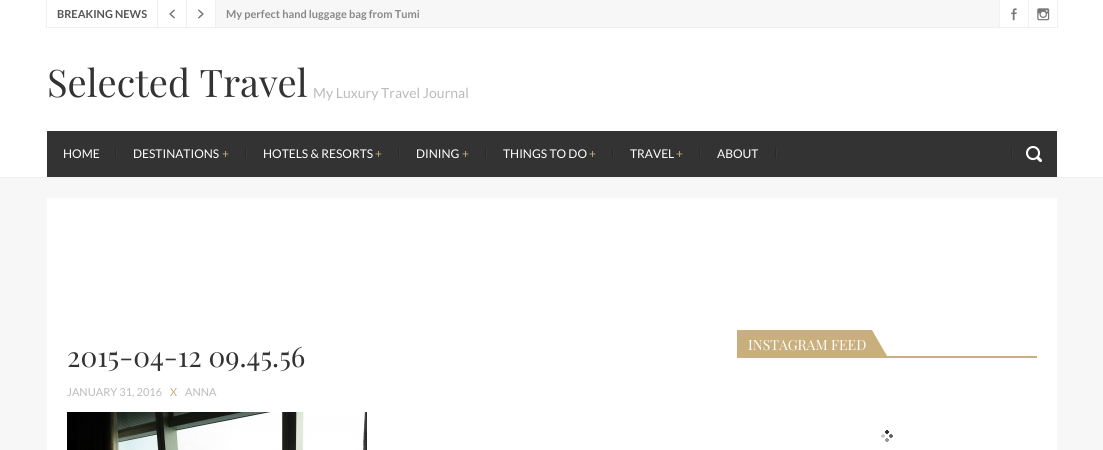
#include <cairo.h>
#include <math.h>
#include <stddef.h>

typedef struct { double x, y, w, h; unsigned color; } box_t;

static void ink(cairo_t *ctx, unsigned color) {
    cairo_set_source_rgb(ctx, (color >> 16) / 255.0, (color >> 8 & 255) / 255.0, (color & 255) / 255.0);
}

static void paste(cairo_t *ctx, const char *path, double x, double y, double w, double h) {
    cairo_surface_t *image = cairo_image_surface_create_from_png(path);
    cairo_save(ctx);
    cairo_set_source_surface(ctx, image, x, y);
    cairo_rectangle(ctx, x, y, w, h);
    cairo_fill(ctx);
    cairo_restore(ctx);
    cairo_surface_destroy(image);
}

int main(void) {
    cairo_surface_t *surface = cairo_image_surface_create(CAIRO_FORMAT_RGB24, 1103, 450);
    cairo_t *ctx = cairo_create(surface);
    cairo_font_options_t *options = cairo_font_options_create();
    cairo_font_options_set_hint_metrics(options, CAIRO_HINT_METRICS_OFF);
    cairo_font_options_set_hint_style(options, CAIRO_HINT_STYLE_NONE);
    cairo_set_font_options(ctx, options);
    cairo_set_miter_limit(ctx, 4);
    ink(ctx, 0xF7F7F7);
    cairo_paint(ctx);
    {
        static const box_t items[] = {
            {0, 0, 1103, 177, 0xFFFFFF},
            {216, 0, 783, 27, 0xF7F7F7},
            {1057, 0, 1, 28, 0xF0F0F0},
            {46, 27, 1012, 1, 0xF0F0F0},
            {46, 0, 1, 28, 0xF0F0F0},
            {157, 0, 1, 27, 0xF0F0F0},
        };
        for (size_t i = 0; i < sizeof items / sizeof *items; i++) {
            ink(ctx, items[i].color);
            cairo_rectangle(ctx, items[i].x, items[i].y, items[i].w, items[i].h);
            cairo_fill(ctx);
        }
    }
    cairo_select_font_face(ctx, "Lato", CAIRO_FONT_SLANT_NORMAL, CAIRO_FONT_WEIGHT_BOLD);
    cairo_set_font_size(ctx, 11);
    ink(ctx, 0x555555);
    cairo_move_to(ctx, 57, 18);
    cairo_show_text(ctx, "BREAKING NEWS");
    paste(ctx, "media/1.png", 169, 9, 6, 10);
    ink(ctx, 0xF0F0F0);
    cairo_rectangle(ctx, 186, 0, 1, 27);
    cairo_fill(ctx);
    paste(ctx, "media/2.png", 198, 9, 6, 10);
    cairo_rectangle(ctx, 215, 0, 1, 27);
    cairo_fill(ctx);
    ink(ctx, 0x888888);
    cairo_move_to(ctx, 226, 18);
    cairo_show_text(ctx, "My perfect hand luggage bag from Tumi");
    paste(ctx, "media/3.png", 1011, 8, 6, 13);
    ink(ctx, 0xF0F0F0);
    cairo_rectangle(ctx, 999, 0, 1, 27);
    cairo_fill(ctx);
    paste(ctx, "media/4.png", 1037, 8, 13, 13);
    cairo_rectangle(ctx, 1028, 0, 1, 27);
    cairo_fill(ctx);
    cairo_rectangle(ctx, 0, 177, 1103, 1);
    cairo_fill(ctx);
    cairo_select_font_face(ctx, "Playfair Display", CAIRO_FONT_SLANT_NORMAL, CAIRO_FONT_WEIGHT_NORMAL);
    cairo_set_font_size(ctx, 38);
    ink(ctx, 0x333333);
    cairo_move_to(ctx, 47, 97);
    cairo_show_text(ctx, "Selected Travel");
    cairo_select_font_face(ctx, "Lato", CAIRO_FONT_SLANT_NORMAL, CAIRO_FONT_WEIGHT_NORMAL);
    cairo_set_font_size(ctx, 14);
    ink(ctx, 0xBBBBBB);
    cairo_move_to(ctx, 313, 98);
    cairo_show_text(ctx, "My Luxury Travel Journal");
    ink(ctx, 0x333333);
    cairo_rectangle(ctx, 47, 131, 1010, 46);
    cairo_fill(ctx);
    cairo_set_font_size(ctx, 12);
    ink(ctx, 0xFFFFFF);
    cairo_move_to(ctx, 63, 158);
    cairo_show_text(ctx, "HOME");
    ink(ctx, 0x3A3A3A);
    cairo_rectangle(ctx, 116, 148, 1, 10);
    cairo_fill(ctx);
    ink(ctx, 0x292929);
    cairo_rectangle(ctx, 115, 148, 1, 10);
    cairo_fill(ctx);
    ink(ctx, 0xFFFFFF);
    cairo_move_to(ctx, 133, 158);
    cairo_show_text(ctx, "DESTINATIONS");
    ink(ctx, 0xC9AF7E);
    cairo_move_to(ctx, 222, 158);
    cairo_show_text(ctx, "+");
    ink(ctx, 0x3A3A3A);
    cairo_rectangle(ctx, 246, 148, 1, 10);
    cairo_fill(ctx);
    ink(ctx, 0x292929);
    cairo_rectangle(ctx, 245, 148, 1, 10);
    cairo_fill(ctx);
    ink(ctx, 0xFFFFFF);
    cairo_move_to(ctx, 263, 158);
    cairo_show_text(ctx, "HOTELS & RESORTS");
    ink(ctx, 0xC9AF7E);
    cairo_move_to(ctx, 375, 158);
    cairo_show_text(ctx, "+");
    ink(ctx, 0x3A3A3A);
    cairo_rectangle(ctx, 399, 148, 1, 10);
    cairo_fill(ctx);
    ink(ctx, 0x292929);
    cairo_rectangle(ctx, 398, 148, 1, 10);
    cairo_fill(ctx);
    ink(ctx, 0xFFFFFF);
    cairo_move_to(ctx, 416, 158);
    cairo_show_text(ctx, "DINING");
    ink(ctx, 0xC9AF7E);
    cairo_move_to(ctx, 462, 158);
    cairo_show_text(ctx, "+");
    ink(ctx, 0x3A3A3A);
    cairo_rectangle(ctx, 486, 148, 1, 10);
    cairo_fill(ctx);
    ink(ctx, 0x292929);
    cairo_rectangle(ctx, 485, 148, 1, 10);
    cairo_fill(ctx);
    ink(ctx, 0xFFFFFF);
    cairo_move_to(ctx, 503, 158);
    cairo_show_text(ctx, "THINGS TO DO");
    ink(ctx, 0xC9AF7E);
    cairo_move_to(ctx, 589, 158);
    cairo_show_text(ctx, "+");
    ink(ctx, 0x3A3A3A);
    cairo_rectangle(ctx, 613, 148, 1, 10);
    cairo_fill(ctx);
    ink(ctx, 0x292929);
    cairo_rectangle(ctx, 612, 148, 1, 10);
    cairo_fill(ctx);
    ink(ctx, 0xFFFFFF);
    cairo_move_to(ctx, 630, 158);
    cairo_show_text(ctx, "TRAVEL");
    ink(ctx, 0xC9AF7E);
    cairo_move_to(ctx, 676, 158);
    cairo_show_text(ctx, "+");
    ink(ctx, 0x3A3A3A);
    cairo_rectangle(ctx, 700, 148, 1, 10);
    cairo_fill(ctx);
    ink(ctx, 0x292929);
    cairo_rectangle(ctx, 699, 148, 1, 10);
    cairo_fill(ctx);
    ink(ctx, 0xFFFFFF);
    cairo_move_to(ctx, 717, 158);
    cairo_show_text(ctx, "ABOUT");
    ink(ctx, 0x3A3A3A);
    cairo_rectangle(ctx, 776, 148, 1, 10);
    cairo_fill(ctx);
    ink(ctx, 0x292929);
    cairo_rectangle(ctx, 775, 148, 1, 10);
    cairo_fill(ctx);
    paste(ctx, "media/5.png", 1026, 146, 16, 16);
    {
        static const box_t items[] = {
            {1012, 148, 1, 10, 0x3A3A3A},
            {1011, 148, 1, 10, 0x292929},
            {47, 198, 1010, 252, 0xFFFFFF},
        };
        for (size_t i = 0; i < sizeof items / sizeof *items; i++) {
            ink(ctx, items[i].color);
            cairo_rectangle(ctx, items[i].x, items[i].y, items[i].w, items[i].h);
            cairo_fill(ctx);
        }
    }
    cairo_select_font_face(ctx, "Playfair Display", CAIRO_FONT_SLANT_NORMAL, CAIRO_FONT_WEIGHT_NORMAL);
    cairo_set_font_size(ctx, 28);
    ink(ctx, 0x333333);
    cairo_move_to(ctx, 67, 367);
    cairo_show_text(ctx, "2015-04-12 09.45.56");
    cairo_select_font_face(ctx, "Lato", CAIRO_FONT_SLANT_NORMAL, CAIRO_FONT_WEIGHT_NORMAL);
    cairo_set_font_size(ctx, 11);
    ink(ctx, 0xBBBBBB);
    cairo_move_to(ctx, 67, 396);
    cairo_show_text(ctx, "JANUARY 31, 2016");
    ink(ctx, 0xC9AF7E);
    cairo_move_to(ctx, 170, 396);
    cairo_show_text(ctx, "X");
    ink(ctx, 0xBBBBBB);
    cairo_move_to(ctx, 185, 396);
    cairo_show_text(ctx, "ANNA");
    paste(ctx, "media/6.png", 67, 412, 300, 38);
    ink(ctx, 0xC9AF7E);
    cairo_rectangle(ctx, 737, 330, 150, 26);
    cairo_fill(ctx);
    cairo_select_font_face(ctx, "Playfair Display", CAIRO_FONT_SLANT_NORMAL, CAIRO_FONT_WEIGHT_NORMAL);
    cairo_set_font_size(ctx, 14);
    ink(ctx, 0xFFFFFF);
    cairo_move_to(ctx, 748, 350);
    cairo_show_text(ctx, "INSTAGRAM FEED");
    paste(ctx, "media/7.png", 872, 330, 16, 26);
    ink(ctx, 0xC9AF7E);
    cairo_rectangle(ctx, 737, 356, 300, 2);
    cairo_fill(ctx);
    paste(ctx, "media/8.png", 881, 430, 12, 12);
    cairo_surface_write_to_png(surface, "image.png");
    cairo_font_options_destroy(options);
    cairo_destroy(ctx);
    cairo_surface_destroy(surface);
    return 0;
}
